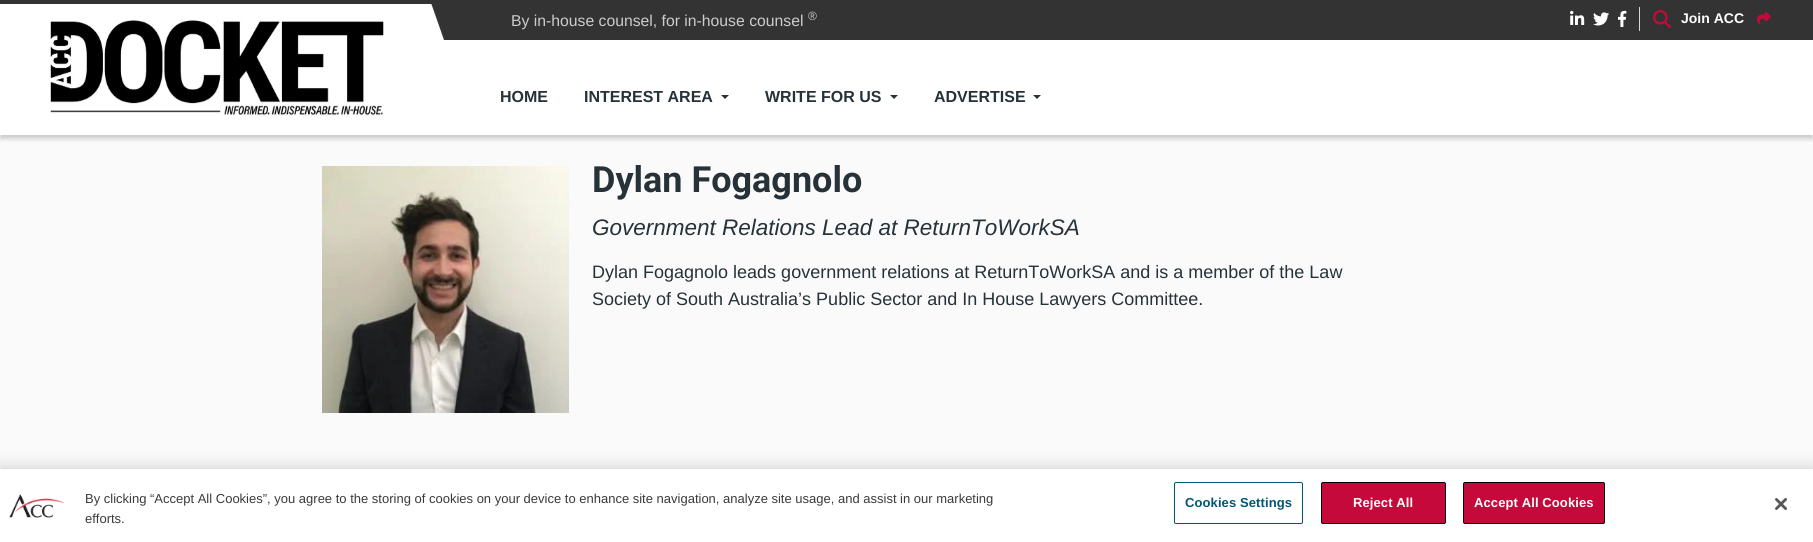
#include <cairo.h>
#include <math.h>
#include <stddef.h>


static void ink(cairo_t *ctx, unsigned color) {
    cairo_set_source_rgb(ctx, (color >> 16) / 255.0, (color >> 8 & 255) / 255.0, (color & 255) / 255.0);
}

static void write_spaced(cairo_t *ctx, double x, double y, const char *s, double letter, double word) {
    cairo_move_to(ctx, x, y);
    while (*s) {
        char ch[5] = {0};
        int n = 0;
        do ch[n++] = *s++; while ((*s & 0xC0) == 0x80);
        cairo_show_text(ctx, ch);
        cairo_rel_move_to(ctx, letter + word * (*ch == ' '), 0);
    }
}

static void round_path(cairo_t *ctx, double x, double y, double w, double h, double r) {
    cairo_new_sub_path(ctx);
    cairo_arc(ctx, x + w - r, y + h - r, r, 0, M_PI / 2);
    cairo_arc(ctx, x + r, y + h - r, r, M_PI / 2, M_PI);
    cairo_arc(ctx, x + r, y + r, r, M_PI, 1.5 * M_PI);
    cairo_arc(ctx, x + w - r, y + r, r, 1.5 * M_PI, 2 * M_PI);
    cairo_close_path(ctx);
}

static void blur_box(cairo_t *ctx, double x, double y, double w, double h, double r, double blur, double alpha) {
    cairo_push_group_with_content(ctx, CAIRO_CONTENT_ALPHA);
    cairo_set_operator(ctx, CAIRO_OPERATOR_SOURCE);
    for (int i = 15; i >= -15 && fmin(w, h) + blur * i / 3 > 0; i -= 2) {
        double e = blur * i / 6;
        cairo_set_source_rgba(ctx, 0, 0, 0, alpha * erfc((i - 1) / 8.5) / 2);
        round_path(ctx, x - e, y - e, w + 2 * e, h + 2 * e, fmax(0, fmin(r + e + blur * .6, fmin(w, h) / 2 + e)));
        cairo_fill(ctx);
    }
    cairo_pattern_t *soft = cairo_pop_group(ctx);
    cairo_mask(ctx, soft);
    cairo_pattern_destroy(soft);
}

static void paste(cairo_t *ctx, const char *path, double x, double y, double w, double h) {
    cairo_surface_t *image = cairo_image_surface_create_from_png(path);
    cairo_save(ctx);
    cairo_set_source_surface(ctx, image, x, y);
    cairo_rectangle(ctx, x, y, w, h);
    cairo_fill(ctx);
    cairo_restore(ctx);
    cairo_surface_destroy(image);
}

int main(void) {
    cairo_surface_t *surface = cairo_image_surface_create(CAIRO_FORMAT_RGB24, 1813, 542);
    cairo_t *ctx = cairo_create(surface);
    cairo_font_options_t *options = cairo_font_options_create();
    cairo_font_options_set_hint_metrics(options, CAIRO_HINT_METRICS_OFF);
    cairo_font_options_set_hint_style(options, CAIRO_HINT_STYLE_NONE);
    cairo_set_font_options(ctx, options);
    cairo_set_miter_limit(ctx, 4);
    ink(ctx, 0xFAFAFA);
    cairo_paint(ctx);
    ink(ctx, 0xFFFFFF);
    cairo_rectangle(ctx, 0, 135, 1813, 4);
    cairo_fill(ctx);
    ink(ctx, 0x000000);
    blur_box(ctx, 0, 4, 1813, 135, 0, 2, 0.2);
    ink(ctx, 0xFFFFFF);
    cairo_rectangle(ctx, 0, 4, 1813, 131);
    cairo_fill(ctx);
    ink(ctx, 0x333333);
    cairo_rectangle(ctx, 461, 4, 1352, 36);
    cairo_fill(ctx);
    cairo_new_path(ctx);
    cairo_move_to(ctx, 430, 0);
    cairo_line_to(ctx, 460, 0);
    cairo_line_to(ctx, 474, 40);
    cairo_line_to(ctx, 444, 40);
    cairo_close_path(ctx);
    cairo_fill(ctx);
    cairo_rectangle(ctx, 0, 0, 1813, 4);
    cairo_fill(ctx);
    cairo_select_font_face(ctx, "Liberation Sans", CAIRO_FONT_SLANT_NORMAL, CAIRO_FONT_WEIGHT_NORMAL);
    cairo_set_font_size(ctx, 15.75);
    ink(ctx, 0xCCCCCC);
    cairo_move_to(ctx, 511, 26);
    cairo_show_text(ctx, "By in-house counsel, for in-house counsel");
    cairo_set_font_size(ctx, 12);
    cairo_move_to(ctx, 808, 20);
    cairo_show_text(ctx, "®");
    ink(ctx, 0xCFD8DC);
    cairo_rectangle(ctx, 1639, 7, 1, 24);
    cairo_fill(ctx);
    paste(ctx, "media/1.png", 1570, 10, 15, 15);
    paste(ctx, "media/2.png", 1593, 12, 16, 14);
    paste(ctx, "media/3.png", 1618, 10, 9, 17);
    paste(ctx, "media/4.png", 1653, 10, 18, 18);
    cairo_select_font_face(ctx, "Liberation Sans", CAIRO_FONT_SLANT_NORMAL, CAIRO_FONT_WEIGHT_BOLD);
    cairo_set_font_size(ctx, 14);
    ink(ctx, 0xFFFFFF);
    cairo_move_to(ctx, 1681, 23);
    cairo_show_text(ctx, "Join ACC");
    paste(ctx, "media/5.png", 1757, 11, 14, 14);
    paste(ctx, "media/6.png", 50, 20, 334, 96);
    cairo_set_font_size(ctx, 16);
    ink(ctx, 0x263238);
    cairo_move_to(ctx, 500, 102);
    cairo_show_text(ctx, "HOME");
    cairo_move_to(ctx, 584, 102);
    cairo_show_text(ctx, "INTEREST AREA");
    cairo_new_path(ctx);
    cairo_move_to(ctx, 721, 95);
    cairo_line_to(ctx, 729, 95);
    cairo_line_to(ctx, 725, 99);
    cairo_close_path(ctx);
    cairo_fill(ctx);
    cairo_move_to(ctx, 765, 102);
    cairo_show_text(ctx, "WRITE FOR US");
    cairo_new_path(ctx);
    cairo_move_to(ctx, 890, 95);
    cairo_line_to(ctx, 898, 95);
    cairo_line_to(ctx, 894, 99);
    cairo_close_path(ctx);
    cairo_fill(ctx);
    cairo_move_to(ctx, 934, 102);
    cairo_show_text(ctx, "ADVERTISE");
    cairo_new_path(ctx);
    cairo_move_to(ctx, 1033, 95);
    cairo_line_to(ctx, 1041, 95);
    cairo_line_to(ctx, 1037, 99);
    cairo_close_path(ctx);
    cairo_fill(ctx);
    paste(ctx, "media/7.png", 322, 166, 247, 247);
    cairo_select_font_face(ctx, "Roboto", CAIRO_FONT_SLANT_NORMAL, CAIRO_FONT_WEIGHT_BOLD);
    cairo_set_font_size(ctx, 36);
    cairo_move_to(ctx, 592, 192);
    cairo_show_text(ctx, "Dylan Fogagnolo");
    cairo_select_font_face(ctx, "Liberation Sans", CAIRO_FONT_SLANT_ITALIC, CAIRO_FONT_WEIGHT_NORMAL);
    cairo_set_font_size(ctx, 22.5);
    cairo_move_to(ctx, 592, 235);
    cairo_show_text(ctx, "Government Relations Lead at ReturnToWorkSA");
    cairo_select_font_face(ctx, "Liberation Sans", CAIRO_FONT_SLANT_NORMAL, CAIRO_FONT_WEIGHT_NORMAL);
    cairo_set_font_size(ctx, 18);
    cairo_move_to(ctx, 592, 278);
    cairo_show_text(ctx, "Dylan Fogagnolo leads government relations at ReturnToWorkSA and is a member of the Law");
    cairo_move_to(ctx, 592, 305);
    cairo_show_text(ctx, "Society of South Australia’s Public Sector and In House Lawyers Committee.");
    ink(ctx, 0x000000);
    blur_box(ctx, 0, 469, 1813, 73, 0, 9, 0.2);
    ink(ctx, 0xFFFFFF);
    cairo_rectangle(ctx, 0, 469, 1813, 73);
    cairo_fill(ctx);
    paste(ctx, "media/8.png", 9, 494, 55, 24);
    cairo_set_font_size(ctx, 13);
    ink(ctx, 0x3A3A3A);
    cairo_move_to(ctx, 85, 503);
    cairo_show_text(ctx, "By clicking “Accept All Cookies”, you agree to the storing of cookies on your device to enhance site navigation, analyze site usage, and assist in our marketing");
    cairo_move_to(ctx, 85, 523);
    cairo_show_text(ctx, "efforts.");
    round_path(ctx, 1174.5, 482.5, 128, 41, 1.5);
    ink(ctx, 0x025674);
    cairo_set_line_width(ctx, 1);
    cairo_stroke(ctx);
    cairo_select_font_face(ctx, "Liberation Sans", CAIRO_FONT_SLANT_NORMAL, CAIRO_FONT_WEIGHT_BOLD);
    write_spaced(ctx, 1185, 507, "Cookies Settings", 0.1, 0);
    ink(ctx, 0xC6093B);
    round_path(ctx, 1321.5, 482.5, 124, 41, 1.5);
    cairo_fill_preserve(ctx);
    ink(ctx, 0x000000);
    cairo_stroke(ctx);
    ink(ctx, 0xFFFFFF);
    write_spaced(ctx, 1353, 507, "Reject All", 0.1, 0);
    ink(ctx, 0xC6093B);
    round_path(ctx, 1463.5, 482.5, 141, 41, 1.5);
    cairo_fill_preserve(ctx);
    ink(ctx, 0x000000);
    cairo_stroke(ctx);
    ink(ctx, 0xFFFFFF);
    write_spaced(ctx, 1474, 507, "Accept All Cookies", 0.1, 0);
    paste(ctx, "media/9.png", 1775, 498, 12, 12);
    cairo_surface_write_to_png(surface, "image.png");
    cairo_font_options_destroy(options);
    cairo_destroy(ctx);
    cairo_surface_destroy(surface);
    return 0;
}
